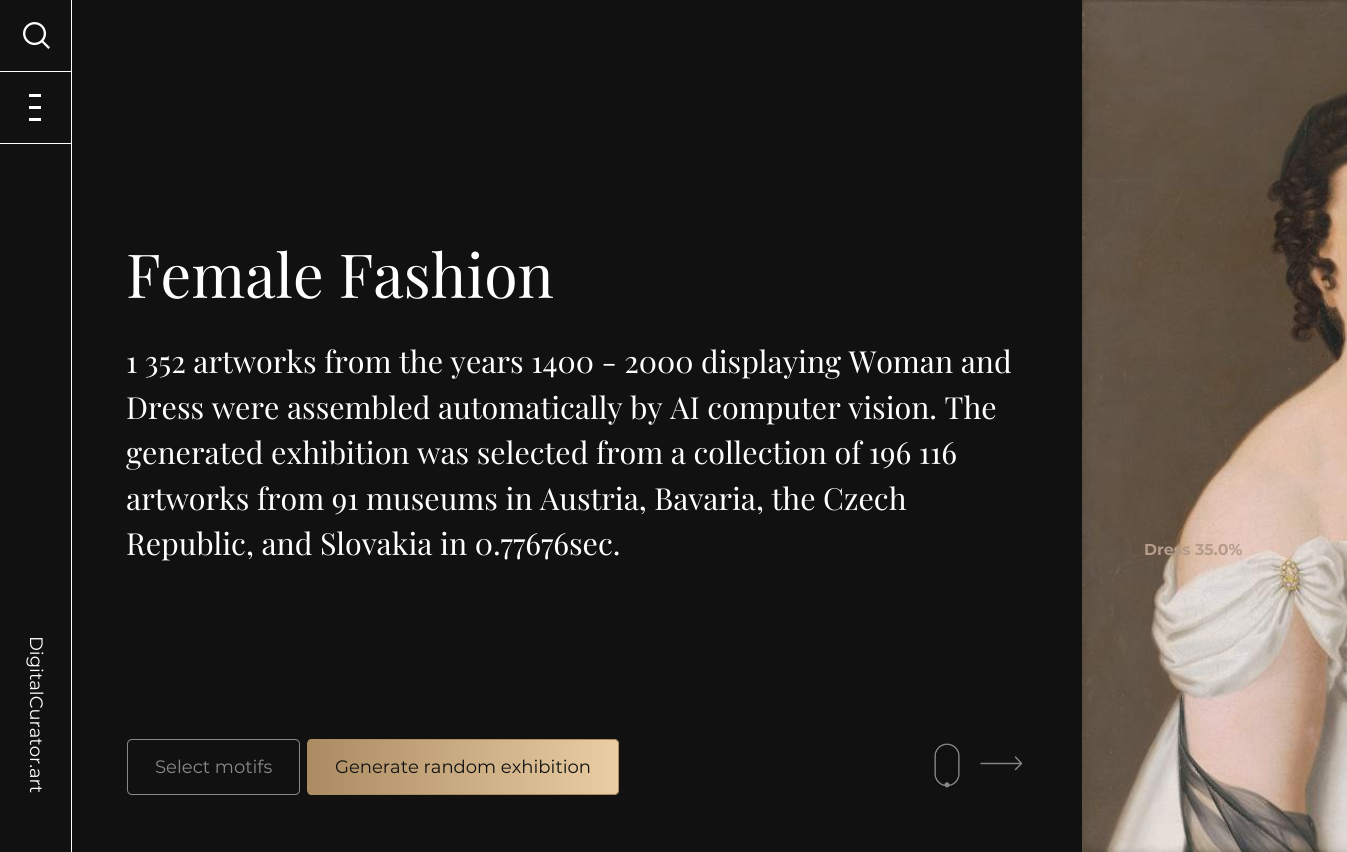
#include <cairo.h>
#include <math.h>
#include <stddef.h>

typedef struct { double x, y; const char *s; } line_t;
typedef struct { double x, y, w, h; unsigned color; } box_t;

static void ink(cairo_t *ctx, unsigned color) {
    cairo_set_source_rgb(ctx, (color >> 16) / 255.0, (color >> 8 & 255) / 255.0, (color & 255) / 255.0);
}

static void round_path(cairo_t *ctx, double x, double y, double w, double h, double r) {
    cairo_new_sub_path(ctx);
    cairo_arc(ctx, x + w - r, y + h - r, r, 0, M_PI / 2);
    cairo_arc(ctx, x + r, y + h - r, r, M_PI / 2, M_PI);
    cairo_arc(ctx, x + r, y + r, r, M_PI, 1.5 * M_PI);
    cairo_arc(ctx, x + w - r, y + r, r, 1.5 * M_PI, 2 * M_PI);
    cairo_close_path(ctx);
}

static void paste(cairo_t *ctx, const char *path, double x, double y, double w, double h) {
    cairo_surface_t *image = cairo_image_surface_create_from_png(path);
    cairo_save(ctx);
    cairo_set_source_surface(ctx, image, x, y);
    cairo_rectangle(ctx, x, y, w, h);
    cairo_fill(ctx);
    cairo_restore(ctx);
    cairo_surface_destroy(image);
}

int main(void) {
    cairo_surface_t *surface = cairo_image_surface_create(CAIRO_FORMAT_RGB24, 1347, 852);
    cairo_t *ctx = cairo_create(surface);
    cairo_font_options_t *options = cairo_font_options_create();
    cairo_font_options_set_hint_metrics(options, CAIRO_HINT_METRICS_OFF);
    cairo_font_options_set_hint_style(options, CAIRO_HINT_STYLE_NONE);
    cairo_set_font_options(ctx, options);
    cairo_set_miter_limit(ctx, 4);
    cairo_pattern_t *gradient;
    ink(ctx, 0xFFFFFF);
    cairo_paint(ctx);
    ink(ctx, 0x111111);
    cairo_rectangle(ctx, 0, 0, 71, 852);
    cairo_fill(ctx);
    paste(ctx, "media/1.png", 23, 22, 27, 27);
    {
        static const box_t items[] = {
            {0, 71, 72, 1, 0xFFFFFF},
            {29, 118, 12, 3, 0xFFFFFF},
            {29, 106, 12, 3, 0xFFFFFF},
            {29, 94, 12, 3, 0xFFFFFF},
            {0, 143, 71, 1, 0xFFFFFF},
        };
        for (size_t i = 0; i < sizeof items / sizeof *items; i++) {
            ink(ctx, items[i].color);
            cairo_rectangle(ctx, items[i].x, items[i].y, items[i].w, items[i].h);
            cairo_fill(ctx);
        }
    }
    cairo_select_font_face(ctx, "Montserrat", CAIRO_FONT_SLANT_NORMAL, CAIRO_FONT_WEIGHT_NORMAL);
    cairo_set_font_size(ctx, 18);
    cairo_save(ctx);
    cairo_translate(ctx, 30, 636);
    cairo_rotate(ctx, 90 * M_PI / 180);
    cairo_move_to(ctx, 0, 0);
    cairo_show_text(ctx, "DigitalCurator.art");
    cairo_restore(ctx);
    ink(ctx, 0x111111);
    cairo_rectangle(ctx, 72, 0, 1010, 852);
    cairo_fill(ctx);
    cairo_select_font_face(ctx, "Playfair Display", CAIRO_FONT_SLANT_NORMAL, CAIRO_FONT_WEIGHT_NORMAL);
    cairo_set_font_size(ctx, 60.75);
    ink(ctx, 0xFFFFFF);
    cairo_move_to(ctx, 126, 298);
    cairo_show_text(ctx, "Female Fashion");
    cairo_set_font_size(ctx, 30.4);
    {
        static const line_t items[] = {
            {126, 373, "1 352 artworks from the years 1400 - 2000 displaying Woman and"},
            {126, 419, "Dress were assembled automatically by AI computer vision. The"},
            {126, 464, "generated exhibition was selected from a collection of 196 116"},
            {126, 510, "artworks from 91 museums in Austria, Bavaria, the Czech"},
            {126, 555, "Republic, and Slovakia in 0.77676sec."},
        };
        for (size_t i = 0; i < sizeof items / sizeof *items; i++) {
            cairo_move_to(ctx, items[i].x, items[i].y);
            cairo_show_text(ctx, items[i].s);
        }
    }
    round_path(ctx, 127.5, 739.5, 172, 55, 4.5);
    ink(ctx, 0x888888);
    cairo_set_line_width(ctx, 1);
    cairo_stroke(ctx);
    cairo_select_font_face(ctx, "Montserrat", CAIRO_FONT_SLANT_NORMAL, CAIRO_FONT_WEIGHT_NORMAL);
    cairo_set_font_size(ctx, 18);
    cairo_move_to(ctx, 155, 773);
    cairo_show_text(ctx, "Select motifs");
    cairo_save(ctx);
    round_path(ctx, 307, 739, 312, 56, 5);
    cairo_clip(ctx);
    gradient = cairo_pattern_create_linear(308, 767, 928, 767);
    cairo_pattern_add_color_stop_rgba(gradient, 0, 0.671, 0.545, 0.384, 1);
    cairo_pattern_add_color_stop_rgba(gradient, 0.5, 0.918, 0.804, 0.639, 1);
    cairo_pattern_add_color_stop_rgba(gradient, 1, 0.671, 0.545, 0.384, 1);
    cairo_set_source(ctx, gradient);
    cairo_pattern_destroy(gradient);
    cairo_new_path(ctx);
    cairo_move_to(ctx, 308, 739);
    cairo_line_to(ctx, 614, 739);
    cairo_curve_to(ctx, 617, 739, 619, 741, 619, 744);
    cairo_line_to(ctx, 619, 790);
    cairo_curve_to(ctx, 619, 793, 617, 795, 614, 795);
    cairo_line_to(ctx, 308, 795);
    cairo_close_path(ctx);
    cairo_fill(ctx);
    cairo_restore(ctx);
    round_path(ctx, 307.5, 739.5, 311, 55, 4.5);
    ink(ctx, 0xAB8B62);
    cairo_stroke(ctx);
    ink(ctx, 0x111111);
    cairo_move_to(ctx, 335, 773);
    cairo_show_text(ctx, "Generate random exhibition");
    paste(ctx, "media/2.png", 934, 743, 26, 45);
    cairo_new_path(ctx);
    cairo_move_to(ctx, 981, 763.5);
    cairo_line_to(ctx, 1020.5, 763.5);
    cairo_move_to(ctx, 1015.5, 769.5);
    cairo_line_to(ctx, 1021.5, 763.5);
    cairo_line_to(ctx, 1015.5, 757);
    ink(ctx, 0x888888);
    cairo_set_line_width(ctx, 1.4);
    cairo_set_line_cap(ctx, CAIRO_LINE_CAP_ROUND);
    cairo_set_line_join(ctx, CAIRO_LINE_JOIN_ROUND);
    cairo_stroke(ctx);
    paste(ctx, "media/3.png", 1082, 0, 265, 852);
    cairo_select_font_face(ctx, "Montserrat", CAIRO_FONT_SLANT_NORMAL, CAIRO_FONT_WEIGHT_BOLD);
    cairo_set_font_size(ctx, 15.75);
    ink(ctx, 0xB59B8A);
    cairo_move_to(ctx, 1144, 555);
    cairo_show_text(ctx, "Dress 35.0%");
    cairo_surface_write_to_png(surface, "image.png");
    cairo_font_options_destroy(options);
    cairo_destroy(ctx);
    cairo_surface_destroy(surface);
    return 0;
}
